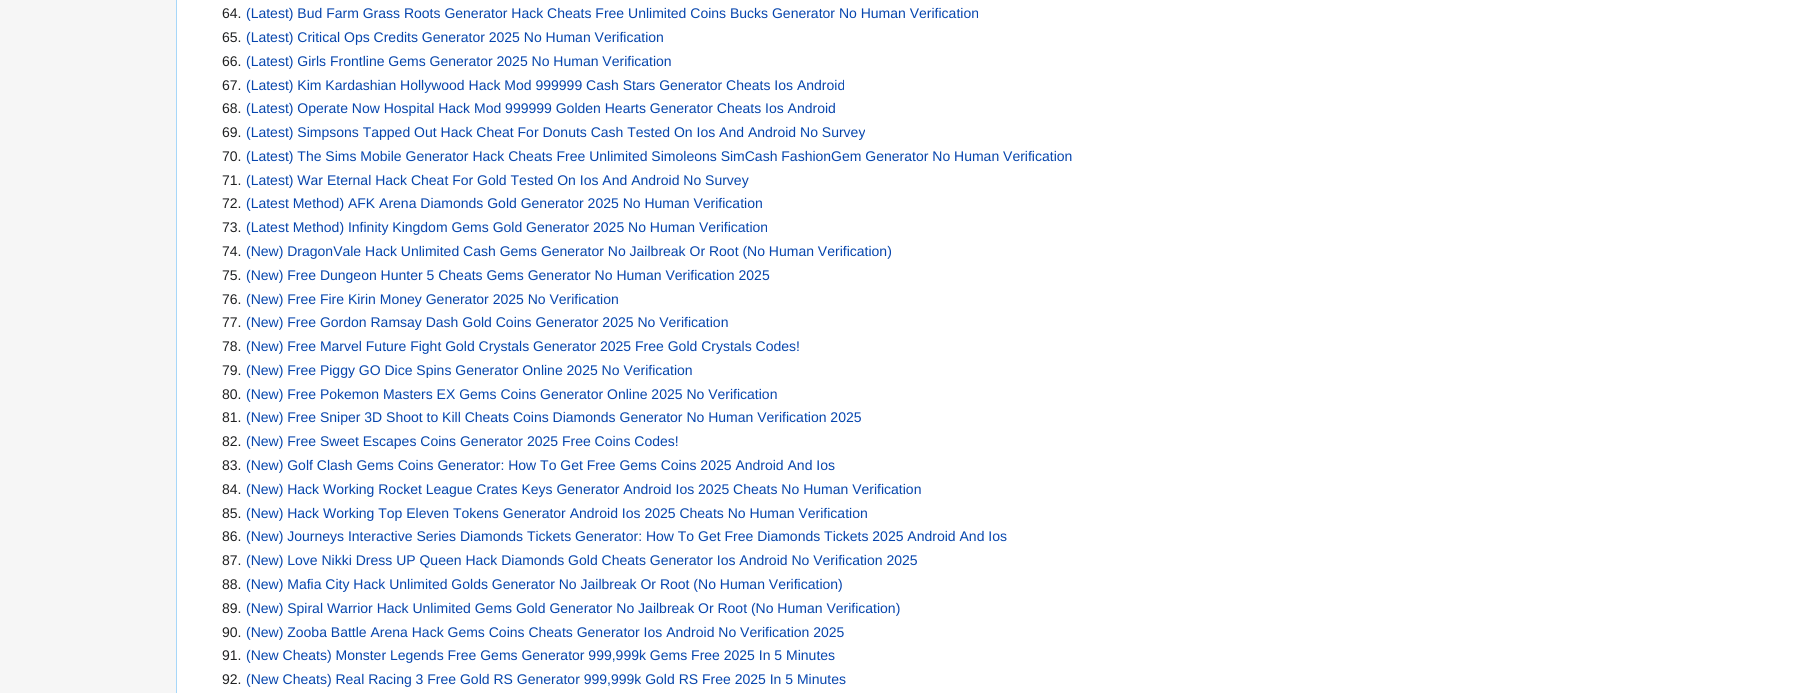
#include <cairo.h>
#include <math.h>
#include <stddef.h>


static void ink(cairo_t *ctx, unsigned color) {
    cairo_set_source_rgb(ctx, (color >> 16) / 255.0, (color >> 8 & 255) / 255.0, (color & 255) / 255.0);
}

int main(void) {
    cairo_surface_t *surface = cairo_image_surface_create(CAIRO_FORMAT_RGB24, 1796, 693);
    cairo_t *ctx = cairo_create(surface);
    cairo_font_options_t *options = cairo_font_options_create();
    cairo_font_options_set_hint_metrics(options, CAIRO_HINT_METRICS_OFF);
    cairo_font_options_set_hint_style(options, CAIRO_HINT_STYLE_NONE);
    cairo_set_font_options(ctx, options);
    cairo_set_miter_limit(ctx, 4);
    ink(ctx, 0xF6F6F6);
    cairo_paint(ctx);
    ink(ctx, 0xFFFFFF);
    cairo_rectangle(ctx, 177, 0, 1619, 693);
    cairo_fill(ctx);
    ink(ctx, 0xA7D7F9);
    cairo_rectangle(ctx, 176, 0, 1, 693);
    cairo_fill(ctx);
    cairo_select_font_face(ctx, "Liberation Sans", CAIRO_FONT_SLANT_NORMAL, CAIRO_FONT_WEIGHT_NORMAL);
    cairo_set_font_size(ctx, 14);
    ink(ctx, 0x202122);
    cairo_move_to(ctx, 222, 18);
    cairo_show_text(ctx, "64.");
    ink(ctx, 0x0645AD);
    cairo_move_to(ctx, 246, 18);
    cairo_show_text(ctx, "(Latest) Bud Farm Grass Roots Generator Hack Cheats Free Unlimited Coins Bucks Generator No Human Verification");
    ink(ctx, 0x202122);
    cairo_move_to(ctx, 222, 42);
    cairo_show_text(ctx, "65.");
    ink(ctx, 0x0645AD);
    cairo_move_to(ctx, 246, 42);
    cairo_show_text(ctx, "(Latest) Critical Ops Credits Generator 2025 No Human Verification");
    ink(ctx, 0x202122);
    cairo_move_to(ctx, 222, 66);
    cairo_show_text(ctx, "66.");
    ink(ctx, 0x0645AD);
    cairo_move_to(ctx, 246, 66);
    cairo_show_text(ctx, "(Latest) Girls Frontline Gems Generator 2025 No Human Verification");
    ink(ctx, 0x202122);
    cairo_move_to(ctx, 222, 90);
    cairo_show_text(ctx, "67.");
    ink(ctx, 0x0645AD);
    cairo_move_to(ctx, 246, 90);
    cairo_show_text(ctx, "(Latest) Kim Kardashian Hollywood Hack Mod 999999 Cash Stars Generator Cheats Ios Android");
    ink(ctx, 0x202122);
    cairo_move_to(ctx, 222, 113);
    cairo_show_text(ctx, "68.");
    ink(ctx, 0x0645AD);
    cairo_move_to(ctx, 246, 113);
    cairo_show_text(ctx, "(Latest) Operate Now Hospital Hack Mod 999999 Golden Hearts Generator Cheats Ios Android");
    ink(ctx, 0x202122);
    cairo_move_to(ctx, 222, 137);
    cairo_show_text(ctx, "69.");
    ink(ctx, 0x0645AD);
    cairo_move_to(ctx, 246, 137);
    cairo_show_text(ctx, "(Latest) Simpsons Tapped Out Hack Cheat For Donuts Cash Tested On Ios And Android No Survey");
    ink(ctx, 0x202122);
    cairo_move_to(ctx, 222, 161);
    cairo_show_text(ctx, "70.");
    ink(ctx, 0x0645AD);
    cairo_move_to(ctx, 246, 161);
    cairo_show_text(ctx, "(Latest) The Sims Mobile Generator Hack Cheats Free Unlimited Simoleons SimCash FashionGem Generator No Human Verification");
    ink(ctx, 0x202122);
    cairo_move_to(ctx, 222, 185);
    cairo_show_text(ctx, "71.");
    ink(ctx, 0x0645AD);
    cairo_move_to(ctx, 246, 185);
    cairo_show_text(ctx, "(Latest) War Eternal Hack Cheat For Gold Tested On Ios And Android No Survey");
    ink(ctx, 0x202122);
    cairo_move_to(ctx, 222, 208);
    cairo_show_text(ctx, "72.");
    ink(ctx, 0x0645AD);
    cairo_move_to(ctx, 246, 208);
    cairo_show_text(ctx, "(Latest Method) AFK Arena Diamonds Gold Generator 2025 No Human Verification");
    ink(ctx, 0x202122);
    cairo_move_to(ctx, 222, 232);
    cairo_show_text(ctx, "73.");
    ink(ctx, 0x0645AD);
    cairo_move_to(ctx, 246, 232);
    cairo_show_text(ctx, "(Latest Method) Infinity Kingdom Gems Gold Generator 2025 No Human Verification");
    ink(ctx, 0x202122);
    cairo_move_to(ctx, 222, 256);
    cairo_show_text(ctx, "74.");
    ink(ctx, 0x0645AD);
    cairo_move_to(ctx, 246, 256);
    cairo_show_text(ctx, "(New) DragonVale Hack Unlimited Cash Gems Generator No Jailbreak Or Root (No Human Verification)");
    ink(ctx, 0x202122);
    cairo_move_to(ctx, 222, 280);
    cairo_show_text(ctx, "75.");
    ink(ctx, 0x0645AD);
    cairo_move_to(ctx, 246, 280);
    cairo_show_text(ctx, "(New) Free Dungeon Hunter 5 Cheats Gems Generator No Human Verification 2025");
    ink(ctx, 0x202122);
    cairo_move_to(ctx, 222, 304);
    cairo_show_text(ctx, "76.");
    ink(ctx, 0x0645AD);
    cairo_move_to(ctx, 246, 304);
    cairo_show_text(ctx, "(New) Free Fire Kirin Money Generator 2025 No Verification");
    ink(ctx, 0x202122);
    cairo_move_to(ctx, 222, 327);
    cairo_show_text(ctx, "77.");
    ink(ctx, 0x0645AD);
    cairo_move_to(ctx, 246, 327);
    cairo_show_text(ctx, "(New) Free Gordon Ramsay Dash Gold Coins Generator 2025 No Verification");
    ink(ctx, 0x202122);
    cairo_move_to(ctx, 222, 351);
    cairo_show_text(ctx, "78.");
    ink(ctx, 0x0645AD);
    cairo_move_to(ctx, 246, 351);
    cairo_show_text(ctx, "(New) Free Marvel Future Fight Gold Crystals Generator 2025 Free Gold Crystals Codes!");
    ink(ctx, 0x202122);
    cairo_move_to(ctx, 222, 375);
    cairo_show_text(ctx, "79.");
    ink(ctx, 0x0645AD);
    cairo_move_to(ctx, 246, 375);
    cairo_show_text(ctx, "(New) Free Piggy GO Dice Spins Generator Online 2025 No Verification");
    ink(ctx, 0x202122);
    cairo_move_to(ctx, 222, 399);
    cairo_show_text(ctx, "80.");
    ink(ctx, 0x0645AD);
    cairo_move_to(ctx, 246, 399);
    cairo_show_text(ctx, "(New) Free Pokemon Masters EX Gems Coins Generator Online 2025 No Verification");
    ink(ctx, 0x202122);
    cairo_move_to(ctx, 222, 422);
    cairo_show_text(ctx, "81.");
    ink(ctx, 0x0645AD);
    cairo_move_to(ctx, 246, 422);
    cairo_show_text(ctx, "(New) Free Sniper 3D Shoot to Kill Cheats Coins Diamonds Generator No Human Verification 2025");
    ink(ctx, 0x202122);
    cairo_move_to(ctx, 222, 446);
    cairo_show_text(ctx, "82.");
    ink(ctx, 0x0645AD);
    cairo_move_to(ctx, 246, 446);
    cairo_show_text(ctx, "(New) Free Sweet Escapes Coins Generator 2025 Free Coins Codes!");
    ink(ctx, 0x202122);
    cairo_move_to(ctx, 222, 470);
    cairo_show_text(ctx, "83.");
    ink(ctx, 0x0645AD);
    cairo_move_to(ctx, 246, 470);
    cairo_show_text(ctx, "(New) Golf Clash Gems Coins Generator: How To Get Free Gems Coins 2025 Android And Ios");
    ink(ctx, 0x202122);
    cairo_move_to(ctx, 222, 494);
    cairo_show_text(ctx, "84.");
    ink(ctx, 0x0645AD);
    cairo_move_to(ctx, 246, 494);
    cairo_show_text(ctx, "(New) Hack Working Rocket League Crates Keys Generator Android Ios 2025 Cheats No Human Verification");
    ink(ctx, 0x202122);
    cairo_move_to(ctx, 222, 518);
    cairo_show_text(ctx, "85.");
    ink(ctx, 0x0645AD);
    cairo_move_to(ctx, 246, 518);
    cairo_show_text(ctx, "(New) Hack Working Top Eleven Tokens Generator Android Ios 2025 Cheats No Human Verification");
    ink(ctx, 0x202122);
    cairo_move_to(ctx, 222, 541);
    cairo_show_text(ctx, "86.");
    ink(ctx, 0x0645AD);
    cairo_move_to(ctx, 246, 541);
    cairo_show_text(ctx, "(New) Journeys Interactive Series Diamonds Tickets Generator: How To Get Free Diamonds Tickets 2025 Android And Ios");
    ink(ctx, 0x202122);
    cairo_move_to(ctx, 222, 565);
    cairo_show_text(ctx, "87.");
    ink(ctx, 0x0645AD);
    cairo_move_to(ctx, 246, 565);
    cairo_show_text(ctx, "(New) Love Nikki Dress UP Queen Hack Diamonds Gold Cheats Generator Ios Android No Verification 2025");
    ink(ctx, 0x202122);
    cairo_move_to(ctx, 222, 589);
    cairo_show_text(ctx, "88.");
    ink(ctx, 0x0645AD);
    cairo_move_to(ctx, 246, 589);
    cairo_show_text(ctx, "(New) Mafia City Hack Unlimited Golds Generator No Jailbreak Or Root (No Human Verification)");
    ink(ctx, 0x202122);
    cairo_move_to(ctx, 222, 613);
    cairo_show_text(ctx, "89.");
    ink(ctx, 0x0645AD);
    cairo_move_to(ctx, 246, 613);
    cairo_show_text(ctx, "(New) Spiral Warrior Hack Unlimited Gems Gold Generator No Jailbreak Or Root (No Human Verification)");
    ink(ctx, 0x202122);
    cairo_move_to(ctx, 222, 637);
    cairo_show_text(ctx, "90.");
    ink(ctx, 0x0645AD);
    cairo_move_to(ctx, 246, 637);
    cairo_show_text(ctx, "(New) Zooba Battle Arena Hack Gems Coins Cheats Generator Ios Android No Verification 2025");
    ink(ctx, 0x202122);
    cairo_move_to(ctx, 222, 660);
    cairo_show_text(ctx, "91.");
    ink(ctx, 0x0645AD);
    cairo_move_to(ctx, 246, 660);
    cairo_show_text(ctx, "(New Cheats) Monster Legends Free Gems Generator 999,999k Gems Free 2025 In 5 Minutes");
    ink(ctx, 0x202122);
    cairo_move_to(ctx, 222, 684);
    cairo_show_text(ctx, "92.");
    ink(ctx, 0x0645AD);
    cairo_move_to(ctx, 246, 684);
    cairo_show_text(ctx, "(New Cheats) Real Racing 3 Free Gold RS Generator 999,999k Gold RS Free 2025 In 5 Minutes");
    cairo_surface_write_to_png(surface, "image.png");
    cairo_font_options_destroy(options);
    cairo_destroy(ctx);
    cairo_surface_destroy(surface);
    return 0;
}
